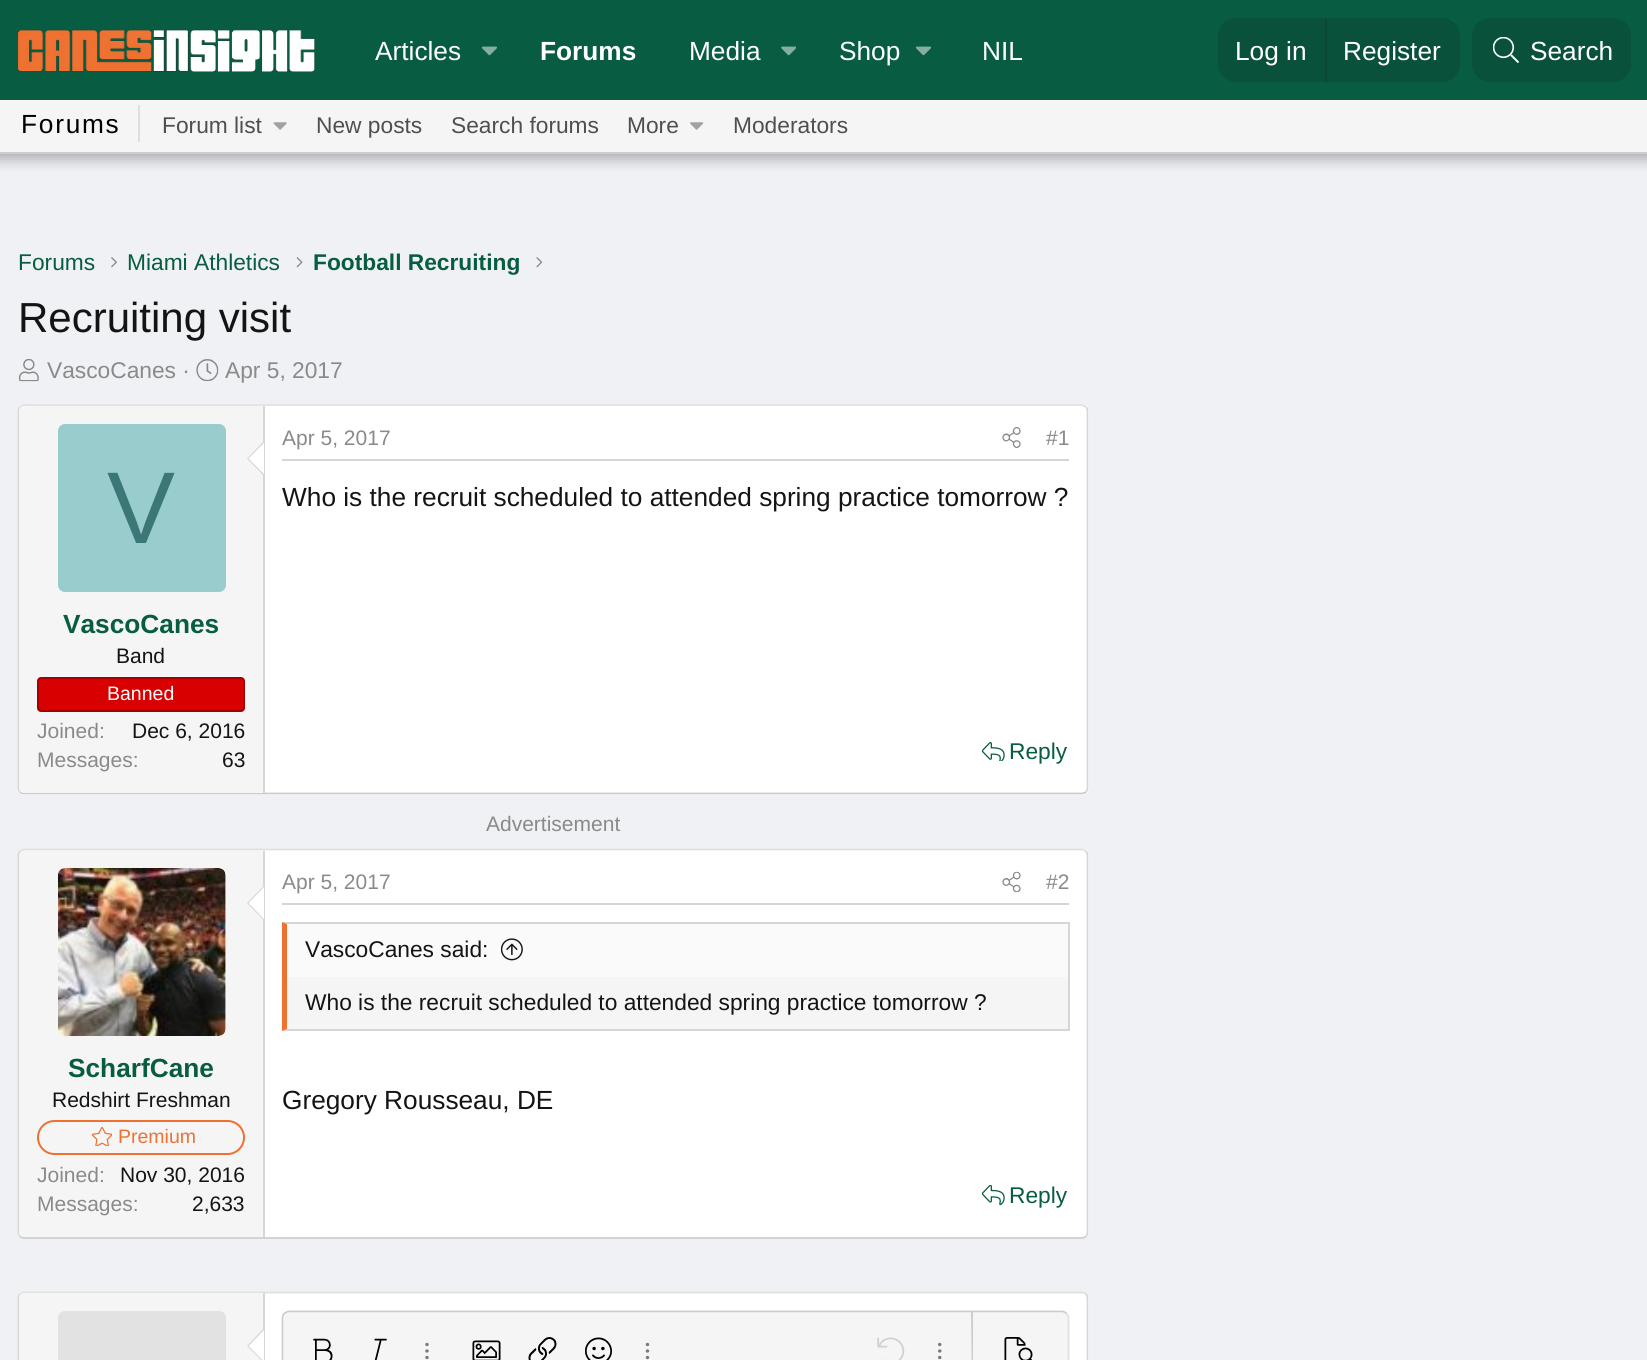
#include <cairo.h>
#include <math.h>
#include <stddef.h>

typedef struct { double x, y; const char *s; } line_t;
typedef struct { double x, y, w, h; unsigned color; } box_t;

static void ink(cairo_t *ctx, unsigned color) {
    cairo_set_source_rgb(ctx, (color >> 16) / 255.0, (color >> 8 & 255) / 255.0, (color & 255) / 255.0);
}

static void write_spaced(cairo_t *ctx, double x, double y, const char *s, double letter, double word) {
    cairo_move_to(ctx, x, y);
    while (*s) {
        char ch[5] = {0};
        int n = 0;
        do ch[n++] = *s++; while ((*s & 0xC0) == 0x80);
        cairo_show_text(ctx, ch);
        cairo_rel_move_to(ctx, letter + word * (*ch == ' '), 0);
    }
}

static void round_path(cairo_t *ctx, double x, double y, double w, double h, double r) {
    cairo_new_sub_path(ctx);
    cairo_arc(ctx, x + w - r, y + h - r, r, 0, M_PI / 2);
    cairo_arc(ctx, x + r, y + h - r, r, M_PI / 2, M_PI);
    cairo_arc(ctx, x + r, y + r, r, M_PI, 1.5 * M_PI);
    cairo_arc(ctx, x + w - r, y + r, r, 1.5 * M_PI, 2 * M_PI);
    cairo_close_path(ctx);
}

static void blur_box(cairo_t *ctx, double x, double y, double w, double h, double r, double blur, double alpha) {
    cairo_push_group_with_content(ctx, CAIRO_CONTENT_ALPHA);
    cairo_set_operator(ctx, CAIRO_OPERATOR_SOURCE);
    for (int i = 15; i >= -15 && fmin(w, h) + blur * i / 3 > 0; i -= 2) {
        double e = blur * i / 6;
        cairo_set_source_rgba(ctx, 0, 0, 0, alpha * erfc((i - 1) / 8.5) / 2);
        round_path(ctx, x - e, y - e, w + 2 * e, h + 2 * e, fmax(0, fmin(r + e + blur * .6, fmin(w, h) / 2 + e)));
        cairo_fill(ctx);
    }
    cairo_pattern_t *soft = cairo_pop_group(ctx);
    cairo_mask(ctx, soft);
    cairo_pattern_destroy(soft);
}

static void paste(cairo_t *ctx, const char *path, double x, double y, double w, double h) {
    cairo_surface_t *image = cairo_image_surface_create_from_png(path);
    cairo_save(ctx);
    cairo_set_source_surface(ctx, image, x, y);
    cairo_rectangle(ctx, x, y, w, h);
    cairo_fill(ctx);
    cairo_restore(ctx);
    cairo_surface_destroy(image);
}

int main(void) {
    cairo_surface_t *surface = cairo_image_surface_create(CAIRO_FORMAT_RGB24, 1647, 1360);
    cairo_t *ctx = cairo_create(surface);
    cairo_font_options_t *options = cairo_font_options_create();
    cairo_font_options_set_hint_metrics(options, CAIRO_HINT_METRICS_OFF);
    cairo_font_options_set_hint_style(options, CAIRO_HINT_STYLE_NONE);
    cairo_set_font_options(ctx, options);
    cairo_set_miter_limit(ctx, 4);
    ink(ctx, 0xEFF1F5);
    cairo_paint(ctx);
    ink(ctx, 0x000000);
    blur_box(ctx, -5, -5, 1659, 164, 0, 7, 0.3);
    ink(ctx, 0x075C41);
    cairo_rectangle(ctx, 0, 0, 1647, 100);
    cairo_fill(ctx);
    paste(ctx, "media/1.png", 17, 29, 298, 43);
    cairo_select_font_face(ctx, "Liberation Sans", CAIRO_FONT_SLANT_NORMAL, CAIRO_FONT_WEIGHT_NORMAL);
    cairo_set_font_size(ctx, 26.25);
    ink(ctx, 0xFFFFFF);
    cairo_move_to(ctx, 375, 60);
    cairo_show_text(ctx, "Articles");
    paste(ctx, "media/2.png", 481, 46, 16, 10);
    cairo_select_font_face(ctx, "Liberation Sans", CAIRO_FONT_SLANT_NORMAL, CAIRO_FONT_WEIGHT_BOLD);
    cairo_move_to(ctx, 540, 60);
    cairo_show_text(ctx, "Forums");
    cairo_select_font_face(ctx, "Liberation Sans", CAIRO_FONT_SLANT_NORMAL, CAIRO_FONT_WEIGHT_NORMAL);
    cairo_move_to(ctx, 689, 60);
    cairo_show_text(ctx, "Media");
    paste(ctx, "media/3.png", 781, 46, 15, 10);
    cairo_move_to(ctx, 839, 60);
    cairo_show_text(ctx, "Shop");
    paste(ctx, "media/2.png", 915, 46, 16, 10);
    cairo_move_to(ctx, 982, 60);
    cairo_show_text(ctx, "NIL");
    ink(ctx, 0x09513A);
    round_path(ctx, 1218, 18, 242, 64, 18);
    cairo_fill(ctx);
    ink(ctx, 0xFFFFFF);
    cairo_move_to(ctx, 1235, 60);
    cairo_show_text(ctx, "Log in");
    ink(ctx, 0x0B4834);
    cairo_rectangle(ctx, 1325, 18, 2, 64);
    cairo_fill(ctx);
    ink(ctx, 0xFFFFFF);
    cairo_move_to(ctx, 1343, 60);
    cairo_show_text(ctx, "Register");
    ink(ctx, 0x09513A);
    round_path(ctx, 1472, 18, 159, 64, 18);
    cairo_fill(ctx);
    paste(ctx, "media/4.png", 1493, 37, 26, 26);
    ink(ctx, 0xFFFFFF);
    cairo_move_to(ctx, 1530, 60);
    cairo_show_text(ctx, "Search");
    {
        static const box_t items[] = {
            {0, 100, 1647, 52, 0xF5F5F5},
            {0, 152, 1647, 2, 0xCCCCCC},
            {138, 105, 2, 37, 0xD9E0E4},
        };
        for (size_t i = 0; i < sizeof items / sizeof *items; i++) {
            ink(ctx, items[i].color);
            cairo_rectangle(ctx, items[i].x, items[i].y, items[i].w, items[i].h);
            cairo_fill(ctx);
        }
    }
    ink(ctx, 0x000000);
    write_spaced(ctx, 21, 133, "Forums", 1.75, 0);
    cairo_set_font_size(ctx, 22.75);
    ink(ctx, 0x4F4F4F);
    cairo_move_to(ctx, 162, 133);
    cairo_show_text(ctx, "Forum list");
    paste(ctx, "media/5.png", 273, 122, 14, 8);
    {
        static const line_t items[] = {
            {316, 133, "New posts"},
            {451, 133, "Search forums"},
            {627, 133, "More"},
        };
        for (size_t i = 0; i < sizeof items / sizeof *items; i++) {
            cairo_move_to(ctx, items[i].x, items[i].y);
            cairo_show_text(ctx, items[i].s);
        }
    }
    paste(ctx, "media/6.png", 690, 122, 14, 8);
    cairo_move_to(ctx, 733, 133);
    cairo_show_text(ctx, "Moderators");
    ink(ctx, 0x075C41);
    cairo_move_to(ctx, 18, 270);
    cairo_show_text(ctx, "Forums");
    paste(ctx, "media/7.png", 111, 257, 6, 11);
    cairo_move_to(ctx, 127, 270);
    cairo_show_text(ctx, "Miami Athletics");
    paste(ctx, "media/8.png", 296, 257, 7, 11);
    cairo_select_font_face(ctx, "Liberation Sans", CAIRO_FONT_SLANT_NORMAL, CAIRO_FONT_WEIGHT_BOLD);
    cairo_move_to(ctx, 313, 270);
    cairo_show_text(ctx, "Football Recruiting");
    paste(ctx, "media/9.png", 536, 257, 7, 11);
    cairo_select_font_face(ctx, "Liberation Sans", CAIRO_FONT_SLANT_NORMAL, CAIRO_FONT_WEIGHT_NORMAL);
    cairo_set_font_size(ctx, 42);
    ink(ctx, 0x141414);
    cairo_move_to(ctx, 18, 332);
    cairo_show_text(ctx, "Recruiting visit");
    paste(ctx, "media/10.png", 18, 359, 21, 23);
    cairo_set_font_size(ctx, 22.75);
    ink(ctx, 0x8A8A8A);
    cairo_move_to(ctx, 47, 378);
    cairo_show_text(ctx, "VascoCanes ·");
    paste(ctx, "media/11.png", 196, 359, 23, 23);
    cairo_move_to(ctx, 225, 378);
    cairo_show_text(ctx, "Apr 5, 2017");
    ink(ctx, 0xFFFFFF);
    round_path(ctx, 18, 404, 1071, 391, 7);
    cairo_fill(ctx);
    cairo_new_path(ctx);
    cairo_move_to(ctx, 20, 407);
    cairo_curve_to(ctx, 21.5, 406, 23, 405, 24.5, 405);
    cairo_line_to(ctx, 1081.5, 405);
    cairo_curve_to(ctx, 1083, 405, 1084.5, 406, 1086, 407);
    ink(ctx, 0xE0E0E0);
    cairo_set_line_width(ctx, 1.8);
    cairo_stroke(ctx);
    cairo_new_path(ctx);
    cairo_move_to(ctx, 1086, 407);
    cairo_curve_to(ctx, 1087, 408, 1087.5, 409.5, 1087.5, 411);
    cairo_line_to(ctx, 1087.5, 787.5);
    cairo_curve_to(ctx, 1087.5, 789, 1087, 790.5, 1086, 792);
    ink(ctx, 0xD6D6D6);
    cairo_stroke(ctx);
    cairo_new_path(ctx);
    cairo_move_to(ctx, 1086, 792);
    cairo_curve_to(ctx, 1084.5, 793, 1083, 793.5, 1081.5, 793.5);
    cairo_line_to(ctx, 24.5, 793.5);
    cairo_curve_to(ctx, 23, 793.5, 21.5, 793, 20, 792);
    ink(ctx, 0xCCCCCC);
    cairo_stroke(ctx);
    cairo_new_path(ctx);
    cairo_move_to(ctx, 20, 792);
    cairo_curve_to(ctx, 19, 790.5, 18.5, 789, 18.5, 787.5);
    cairo_line_to(ctx, 18.5, 411);
    cairo_curve_to(ctx, 18.5, 409.5, 19, 408, 20, 407);
    ink(ctx, 0xD6D6D6);
    cairo_stroke(ctx);
    ink(ctx, 0xF5F5F5);
    cairo_new_path(ctx);
    cairo_move_to(ctx, 24, 406);
    cairo_line_to(ctx, 264, 406);
    cairo_line_to(ctx, 264, 793);
    cairo_line_to(ctx, 24, 793);
    cairo_curve_to(ctx, 21, 793, 19, 791, 19, 788);
    cairo_line_to(ctx, 19, 411);
    cairo_curve_to(ctx, 19, 408, 21, 406, 24, 406);
    cairo_close_path(ctx);
    cairo_fill(ctx);
    ink(ctx, 0xD6D6D6);
    cairo_rectangle(ctx, 263, 406, 2, 387);
    cairo_fill(ctx);
    cairo_new_path(ctx);
    cairo_move_to(ctx, 264, 441);
    cairo_line_to(ctx, 264, 476);
    cairo_line_to(ctx, 247, 458.5);
    cairo_close_path(ctx);
    cairo_fill(ctx);
    ink(ctx, 0xFFFFFF);
    cairo_new_path(ctx);
    cairo_move_to(ctx, 264, 443);
    cairo_line_to(ctx, 264, 474);
    cairo_line_to(ctx, 248.5, 458.5);
    cairo_close_path(ctx);
    cairo_fill(ctx);
    ink(ctx, 0x99CCCC);
    round_path(ctx, 58, 424, 168, 168, 7);
    cairo_fill(ctx);
    cairo_set_font_size(ctx, 102);
    ink(ctx, 0x3C7777);
    cairo_move_to(ctx, 107, 543);
    cairo_show_text(ctx, "V");
    cairo_select_font_face(ctx, "Liberation Sans", CAIRO_FONT_SLANT_NORMAL, CAIRO_FONT_WEIGHT_BOLD);
    cairo_set_font_size(ctx, 26.25);
    ink(ctx, 0x075C41);
    cairo_move_to(ctx, 63, 633);
    cairo_show_text(ctx, "VascoCanes");
    cairo_select_font_face(ctx, "Liberation Sans", CAIRO_FONT_SLANT_NORMAL, CAIRO_FONT_WEIGHT_NORMAL);
    cairo_set_font_size(ctx, 21);
    ink(ctx, 0x141414);
    cairo_move_to(ctx, 116, 663);
    cairo_show_text(ctx, "Band");
    ink(ctx, 0xD80000);
    round_path(ctx, 38, 678, 206, 33, 3);
    cairo_fill_preserve(ctx);
    ink(ctx, 0xA50000);
    cairo_set_line_width(ctx, 2);
    cairo_stroke(ctx);
    cairo_set_font_size(ctx, 19.5);
    ink(ctx, 0xFFFFFF);
    cairo_move_to(ctx, 107, 700);
    cairo_show_text(ctx, "Banned");
    cairo_set_font_size(ctx, 21);
    ink(ctx, 0x8A8A8A);
    cairo_move_to(ctx, 37, 738);
    cairo_show_text(ctx, "Joined:");
    ink(ctx, 0x141414);
    cairo_move_to(ctx, 132, 738);
    cairo_show_text(ctx, "Dec 6, 2016");
    ink(ctx, 0x8A8A8A);
    cairo_move_to(ctx, 37, 767);
    cairo_show_text(ctx, "Messages:");
    ink(ctx, 0x141414);
    cairo_move_to(ctx, 222, 767);
    cairo_show_text(ctx, "63");
    ink(ctx, 0xD6D6D6);
    cairo_rectangle(ctx, 282, 459, 787, 2);
    cairo_fill(ctx);
    ink(ctx, 0x8A8A8A);
    cairo_move_to(ctx, 282, 445);
    cairo_show_text(ctx, "Apr 5, 2017");
    paste(ctx, "media/12.png", 1002, 427, 19, 21);
    cairo_move_to(ctx, 1046, 445);
    cairo_show_text(ctx, "#1");
    cairo_set_font_size(ctx, 26.25);
    ink(ctx, 0x141414);
    cairo_move_to(ctx, 282, 506);
    cairo_show_text(ctx, "Who is the recruit scheduled to attended spring practice tomorrow ?");
    paste(ctx, "media/13.png", 982, 742, 23, 19);
    cairo_set_font_size(ctx, 22.75);
    ink(ctx, 0x075C41);
    cairo_move_to(ctx, 1009, 759);
    cairo_show_text(ctx, "Reply");
    cairo_set_font_size(ctx, 21);
    ink(ctx, 0x8A8A8A);
    cairo_move_to(ctx, 486, 831);
    cairo_show_text(ctx, "Advertisement");
    ink(ctx, 0xFFFFFF);
    round_path(ctx, 18, 849, 1071, 390, 7);
    cairo_fill(ctx);
    cairo_new_path(ctx);
    cairo_move_to(ctx, 20, 851.5);
    cairo_curve_to(ctx, 21.5, 850.5, 23, 849.5, 24.5, 849.5);
    cairo_line_to(ctx, 1081.5, 849.5);
    cairo_curve_to(ctx, 1083, 849.5, 1084.5, 850.5, 1086, 851.5);
    ink(ctx, 0xE0E0E0);
    cairo_set_line_width(ctx, 1.8);
    cairo_stroke(ctx);
    cairo_new_path(ctx);
    cairo_move_to(ctx, 1086, 851.5);
    cairo_curve_to(ctx, 1087, 852.5, 1087.5, 854, 1087.5, 856);
    cairo_line_to(ctx, 1087.5, 1232);
    cairo_curve_to(ctx, 1087.5, 1233.5, 1087, 1235, 1086, 1236.5);
    ink(ctx, 0xD6D6D6);
    cairo_stroke(ctx);
    cairo_new_path(ctx);
    cairo_move_to(ctx, 1086, 1236.5);
    cairo_curve_to(ctx, 1084.5, 1237.5, 1083, 1238, 1081.5, 1238);
    cairo_line_to(ctx, 24.5, 1238);
    cairo_curve_to(ctx, 23, 1238, 21.5, 1237.5, 20, 1236.5);
    ink(ctx, 0xCCCCCC);
    cairo_stroke(ctx);
    cairo_new_path(ctx);
    cairo_move_to(ctx, 20, 1236.5);
    cairo_curve_to(ctx, 19, 1235, 18.5, 1233.5, 18.5, 1232);
    cairo_line_to(ctx, 18.5, 856);
    cairo_curve_to(ctx, 18.5, 854, 19, 852.5, 20, 851.5);
    ink(ctx, 0xD6D6D6);
    cairo_stroke(ctx);
    ink(ctx, 0xF5F5F5);
    cairo_new_path(ctx);
    cairo_move_to(ctx, 24, 851);
    cairo_line_to(ctx, 264, 851);
    cairo_line_to(ctx, 264, 1237);
    cairo_line_to(ctx, 24, 1237);
    cairo_curve_to(ctx, 21, 1237, 19, 1235, 19, 1232);
    cairo_line_to(ctx, 19, 856);
    cairo_curve_to(ctx, 19, 853, 21, 851, 24, 851);
    cairo_close_path(ctx);
    cairo_fill(ctx);
    ink(ctx, 0xD6D6D6);
    cairo_rectangle(ctx, 263, 851, 2, 386);
    cairo_fill(ctx);
    ink(ctx, 0xFFFFFF);
    round_path(ctx, 58, 868, 168, 168, 7);
    cairo_fill(ctx);
    paste(ctx, "media/14.png", 58, 868, 168, 168);
    ink(ctx, 0xD6D6D6);
    cairo_new_path(ctx);
    cairo_move_to(ctx, 264, 885.5);
    cairo_line_to(ctx, 264, 920.5);
    cairo_line_to(ctx, 247, 903);
    cairo_close_path(ctx);
    cairo_fill(ctx);
    ink(ctx, 0xFFFFFF);
    cairo_new_path(ctx);
    cairo_move_to(ctx, 264, 887);
    cairo_line_to(ctx, 264, 919);
    cairo_line_to(ctx, 248.5, 903);
    cairo_close_path(ctx);
    cairo_fill(ctx);
    cairo_select_font_face(ctx, "Liberation Sans", CAIRO_FONT_SLANT_NORMAL, CAIRO_FONT_WEIGHT_BOLD);
    cairo_set_font_size(ctx, 26.25);
    ink(ctx, 0x075C41);
    cairo_move_to(ctx, 68, 1077);
    cairo_show_text(ctx, "ScharfCane");
    cairo_select_font_face(ctx, "Liberation Sans", CAIRO_FONT_SLANT_NORMAL, CAIRO_FONT_WEIGHT_NORMAL);
    cairo_set_font_size(ctx, 21);
    ink(ctx, 0x141414);
    cairo_move_to(ctx, 52, 1107);
    cairo_show_text(ctx, "Redshirt Freshman");
    round_path(ctx, 38, 1121, 206, 33, 16.5);
    ink(ctx, 0xEF7132);
    cairo_set_line_width(ctx, 2);
    cairo_stroke(ctx);
    paste(ctx, "media/15.png", 91, 1127, 21, 19);
    cairo_set_font_size(ctx, 19.5);
    cairo_move_to(ctx, 118, 1143);
    cairo_show_text(ctx, "Premium");
    cairo_set_font_size(ctx, 21);
    ink(ctx, 0x8A8A8A);
    cairo_move_to(ctx, 37, 1182);
    cairo_show_text(ctx, "Joined:");
    ink(ctx, 0x141414);
    cairo_move_to(ctx, 120, 1182);
    cairo_show_text(ctx, "Nov 30, 2016");
    ink(ctx, 0x8A8A8A);
    cairo_move_to(ctx, 37, 1211);
    cairo_show_text(ctx, "Messages:");
    ink(ctx, 0x141414);
    cairo_move_to(ctx, 192, 1211);
    cairo_show_text(ctx, "2,633");
    ink(ctx, 0xD6D6D6);
    cairo_rectangle(ctx, 282, 903, 787, 2);
    cairo_fill(ctx);
    ink(ctx, 0x8A8A8A);
    cairo_move_to(ctx, 282, 889);
    cairo_show_text(ctx, "Apr 5, 2017");
    paste(ctx, "media/16.png", 1002, 871, 19, 22);
    cairo_move_to(ctx, 1046, 889);
    cairo_show_text(ctx, "#2");
    ink(ctx, 0xF5F5F5);
    cairo_rectangle(ctx, 287, 977, 781, 52);
    cairo_fill(ctx);
    ink(ctx, 0xD6D6D6);
    cairo_new_path(ctx);
    cairo_move_to(ctx, 282, 922);
    cairo_line_to(ctx, 1069, 922);
    cairo_line_to(ctx, 1068, 924);
    cairo_line_to(ctx, 287, 924);
    cairo_close_path(ctx);
    cairo_fill(ctx);
    cairo_rectangle(ctx, 1068, 922, 2, 109);
    cairo_fill(ctx);
    cairo_new_path(ctx);
    cairo_move_to(ctx, 1069, 1031);
    cairo_line_to(ctx, 282, 1031);
    cairo_line_to(ctx, 287, 1029);
    cairo_line_to(ctx, 1068, 1029);
    cairo_close_path(ctx);
    cairo_fill(ctx);
    ink(ctx, 0xEF7132);
    cairo_new_path(ctx);
    cairo_move_to(ctx, 282, 1031);
    cairo_line_to(ctx, 282, 922);
    cairo_line_to(ctx, 287, 924);
    cairo_line_to(ctx, 287, 1029);
    cairo_close_path(ctx);
    cairo_fill(ctx);
    ink(ctx, 0xFAFAFA);
    cairo_rectangle(ctx, 287, 924, 781, 53);
    cairo_fill(ctx);
    cairo_set_font_size(ctx, 22.75);
    ink(ctx, 0x141414);
    cairo_move_to(ctx, 305, 957);
    cairo_show_text(ctx, "VascoCanes said:");
    paste(ctx, "media/17.png", 501, 938, 22, 23);
    cairo_move_to(ctx, 305, 1010);
    cairo_show_text(ctx, "Who is the recruit scheduled to attended spring practice tomorrow ?");
    cairo_set_font_size(ctx, 26.25);
    cairo_move_to(ctx, 282, 1109);
    cairo_show_text(ctx, "Gregory Rousseau, DE");
    paste(ctx, "media/18.png", 982, 1185, 23, 21);
    cairo_set_font_size(ctx, 22.75);
    ink(ctx, 0x075C41);
    cairo_move_to(ctx, 1009, 1203);
    cairo_show_text(ctx, "Reply");
    ink(ctx, 0xFFFFFF);
    round_path(ctx, 18, 1292, 1071, 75, 7);
    cairo_fill(ctx);
    cairo_new_path(ctx);
    cairo_move_to(ctx, 20, 1294);
    cairo_curve_to(ctx, 21.5, 1293, 23, 1292.5, 24.5, 1292.5);
    cairo_line_to(ctx, 1081.5, 1292.5);
    cairo_curve_to(ctx, 1083, 1292.5, 1084.5, 1293, 1086, 1294);
    ink(ctx, 0xE0E0E0);
    cairo_set_line_width(ctx, 1.8);
    cairo_stroke(ctx);
    cairo_new_path(ctx);
    cairo_move_to(ctx, 1086, 1294);
    cairo_curve_to(ctx, 1087, 1295.5, 1087.5, 1297, 1087.5, 1298.5);
    cairo_line_to(ctx, 1087.5, 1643);
    cairo_curve_to(ctx, 1087.5, 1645, 1087, 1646.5, 1086, 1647.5);
    ink(ctx, 0xD6D6D6);
    cairo_stroke(ctx);
    cairo_new_path(ctx);
    cairo_move_to(ctx, 20, 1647.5);
    cairo_curve_to(ctx, 19, 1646.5, 18.5, 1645, 18.5, 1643);
    cairo_line_to(ctx, 18.5, 1298.5);
    cairo_curve_to(ctx, 18.5, 1297, 19, 1295.5, 20, 1294);
    cairo_stroke(ctx);
    ink(ctx, 0xF5F5F5);
    cairo_new_path(ctx);
    cairo_move_to(ctx, 24, 1293);
    cairo_line_to(ctx, 264, 1293);
    cairo_line_to(ctx, 264, 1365);
    cairo_line_to(ctx, 24, 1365);
    cairo_curve_to(ctx, 21, 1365, 19, 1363, 19, 1360);
    cairo_line_to(ctx, 19, 1298);
    cairo_curve_to(ctx, 19, 1295, 21, 1293, 24, 1293);
    cairo_close_path(ctx);
    cairo_fill(ctx);
    ink(ctx, 0xD6D6D6);
    cairo_rectangle(ctx, 263, 1293, 2, 67);
    cairo_fill(ctx);
    ink(ctx, 0xE2E2E2);
    round_path(ctx, 58, 1311, 168, 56, 7);
    cairo_fill(ctx);
    ink(ctx, 0xD6D6D6);
    cairo_new_path(ctx);
    cairo_move_to(ctx, 264, 1328);
    cairo_line_to(ctx, 264, 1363);
    cairo_line_to(ctx, 247, 1346);
    cairo_close_path(ctx);
    cairo_fill(ctx);
    ink(ctx, 0xFFFFFF);
    cairo_new_path(ctx);
    cairo_move_to(ctx, 264, 1330);
    cairo_line_to(ctx, 264, 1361.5);
    cairo_line_to(ctx, 248.5, 1346);
    cairo_close_path(ctx);
    cairo_fill(ctx);
    ink(ctx, 0xF5F5F5);
    round_path(ctx, 284, 1313, 784, 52, 5);
    cairo_fill(ctx);
    cairo_new_path(ctx);
    cairo_move_to(ctx, 1066.5, 1313.5);
    cairo_curve_to(ctx, 1067.5, 1314.5, 1068.5, 1316, 1068.5, 1318);
    cairo_line_to(ctx, 1068.5, 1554);
    cairo_curve_to(ctx, 1068.5, 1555.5, 1067.5, 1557, 1066.5, 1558.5);
    cairo_curve_to(ctx, 1065.5, 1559.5, 1064, 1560, 1062, 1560);
    cairo_line_to(ctx, 289, 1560);
    cairo_curve_to(ctx, 287, 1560, 285.5, 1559.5, 284.5, 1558.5);
    ink(ctx, 0xE0E0E0);
    cairo_stroke(ctx);
    cairo_new_path(ctx);
    cairo_move_to(ctx, 284.5, 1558.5);
    cairo_curve_to(ctx, 283.5, 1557, 282.5, 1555.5, 282.5, 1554);
    cairo_line_to(ctx, 282.5, 1318);
    cairo_curve_to(ctx, 282.5, 1316, 283.5, 1314.5, 284.5, 1313.5);
    cairo_curve_to(ctx, 285.5, 1312.5, 287, 1311.5, 289, 1311.5);
    cairo_line_to(ctx, 1062, 1311.5);
    cairo_curve_to(ctx, 1064, 1311.5, 1065.5, 1312.5, 1066.5, 1313.5);
    ink(ctx, 0xCCCCCC);
    cairo_stroke(ctx);
    paste(ctx, "media/19.png", 313, 1338, 20, 22);
    paste(ctx, "media/20.png", 374, 1338, 13, 22);
    paste(ctx, "media/21.png", 425, 1342, 4, 18);
    paste(ctx, "media/22.png", 472, 1340, 29, 20);
    paste(ctx, "media/23.png", 528, 1337, 29, 23);
    paste(ctx, "media/24.png", 585, 1337, 27, 23);
    paste(ctx, "media/25.png", 645, 1342, 5, 18);
    paste(ctx, "media/26.png", 877, 1337, 28, 23);
    paste(ctx, "media/27.png", 938, 1342, 4, 18);
    cairo_new_path(ctx);
    cairo_move_to(ctx, 972, 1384);
    cairo_line_to(ctx, 971, 1312);
    cairo_line_to(ctx, 973, 1312);
    cairo_line_to(ctx, 973, 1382);
    cairo_line_to(ctx, 974, 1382);
    cairo_close_path(ctx);
    cairo_fill(ctx);
    paste(ctx, "media/28.png", 1004, 1337, 29, 23);
    cairo_surface_write_to_png(surface, "image.png");
    cairo_font_options_destroy(options);
    cairo_destroy(ctx);
    cairo_surface_destroy(surface);
    return 0;
}
